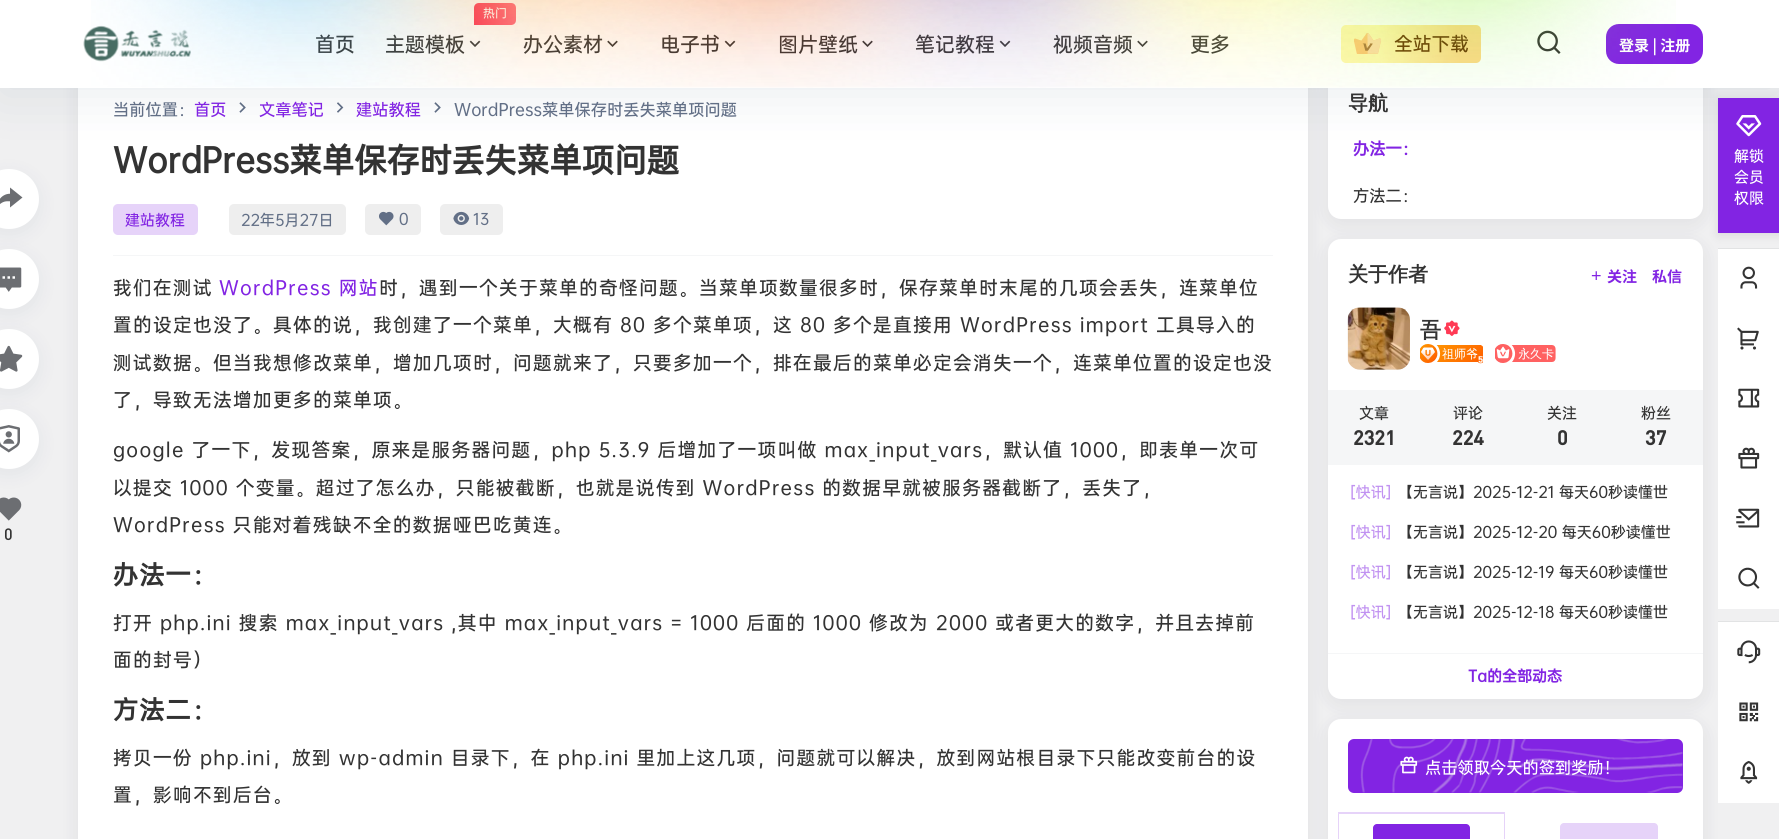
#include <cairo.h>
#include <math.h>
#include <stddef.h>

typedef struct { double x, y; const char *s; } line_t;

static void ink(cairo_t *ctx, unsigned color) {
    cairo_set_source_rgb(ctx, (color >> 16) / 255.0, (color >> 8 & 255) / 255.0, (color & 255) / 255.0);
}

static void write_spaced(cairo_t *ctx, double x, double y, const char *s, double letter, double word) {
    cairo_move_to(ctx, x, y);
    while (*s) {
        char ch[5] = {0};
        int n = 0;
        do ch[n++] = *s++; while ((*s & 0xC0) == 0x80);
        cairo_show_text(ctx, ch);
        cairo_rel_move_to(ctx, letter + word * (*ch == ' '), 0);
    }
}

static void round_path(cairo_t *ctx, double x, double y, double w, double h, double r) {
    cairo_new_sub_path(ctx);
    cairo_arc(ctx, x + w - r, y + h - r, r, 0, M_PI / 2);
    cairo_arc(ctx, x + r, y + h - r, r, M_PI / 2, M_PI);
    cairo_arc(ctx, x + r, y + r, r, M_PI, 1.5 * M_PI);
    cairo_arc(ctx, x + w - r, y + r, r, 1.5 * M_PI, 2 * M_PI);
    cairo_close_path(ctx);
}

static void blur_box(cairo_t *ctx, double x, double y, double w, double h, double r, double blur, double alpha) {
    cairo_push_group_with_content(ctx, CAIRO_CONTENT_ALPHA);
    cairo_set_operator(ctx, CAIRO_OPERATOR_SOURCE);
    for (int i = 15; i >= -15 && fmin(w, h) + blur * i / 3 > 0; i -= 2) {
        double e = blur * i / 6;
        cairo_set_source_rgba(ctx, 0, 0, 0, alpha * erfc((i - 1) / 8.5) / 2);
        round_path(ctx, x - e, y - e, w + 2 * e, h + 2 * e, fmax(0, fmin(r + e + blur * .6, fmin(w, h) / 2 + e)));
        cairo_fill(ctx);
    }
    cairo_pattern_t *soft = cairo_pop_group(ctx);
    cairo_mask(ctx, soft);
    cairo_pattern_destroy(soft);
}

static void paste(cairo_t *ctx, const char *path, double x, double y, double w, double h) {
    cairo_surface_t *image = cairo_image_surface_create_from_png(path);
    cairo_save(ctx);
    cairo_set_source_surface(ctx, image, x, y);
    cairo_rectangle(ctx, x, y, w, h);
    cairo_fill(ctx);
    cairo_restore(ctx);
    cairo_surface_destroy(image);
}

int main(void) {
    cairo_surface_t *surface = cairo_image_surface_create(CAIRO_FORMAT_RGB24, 1779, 839);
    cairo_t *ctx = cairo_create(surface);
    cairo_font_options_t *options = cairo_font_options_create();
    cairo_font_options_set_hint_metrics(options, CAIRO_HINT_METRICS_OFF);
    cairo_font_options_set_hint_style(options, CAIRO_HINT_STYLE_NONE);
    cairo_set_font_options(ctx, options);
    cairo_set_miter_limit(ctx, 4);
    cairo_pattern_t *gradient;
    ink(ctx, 0xF0F0F1);
    cairo_paint(ctx);
    ink(ctx, 0x16172F);
    blur_box(ctx, 78, 74, 1230, 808, 13, 10, 0.08);
    ink(ctx, 0xFFFFFF);
    cairo_rectangle(ctx, 78, 88, 1230, 751);
    cairo_fill(ctx);
    paste(ctx, "media/7.png", 239, 102, 7, 11);
    paste(ctx, "media/8.png", 337, 102, 7, 11);
    paste(ctx, "media/7.png", 434, 102, 7, 11);
    ink(ctx, 0x0D275B);
    blur_box(ctx, -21, 174, 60, 60, 30, 10, 0.06);
    ink(ctx, 0xFFFFFF);
    cairo_arc(ctx, 9, 199, 30, 0, 2 * M_PI);
    cairo_fill(ctx);
    ink(ctx, 0x16172F);
    blur_box(ctx, 1328, 74, 375, 150, 13, 10, 0.08);
    ink(ctx, 0xFFFFFF);
    round_path(ctx, 1328, 69, 375, 150, 13);
    cairo_fill(ctx);
    ink(ctx, 0x113A5D);
    blur_box(ctx, 0, 6, 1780, 88, 0, 25, 0.1);
    ink(ctx, 0xFFFFFF);
    cairo_rectangle(ctx, 0, 0, 1779, 88);
    cairo_fill(ctx);
    paste(ctx, "media/2.png", 83, 25, 108, 37);
    cairo_save(ctx);
    cairo_rectangle(ctx, 78, 23, 212, 42);
    cairo_clip(ctx);
    cairo_set_source_rgba(ctx, 1, 1, 1, 0.5);
    cairo_new_path(ctx);
    cairo_move_to(ctx, 101, 106);
    cairo_line_to(ctx, 233, -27);
    cairo_line_to(ctx, 242, -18);
    cairo_line_to(ctx, 109, 114);
    cairo_close_path(ctx);
    cairo_fill(ctx);
    cairo_restore(ctx);
    cairo_select_font_face(ctx, "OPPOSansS", CAIRO_FONT_SLANT_NORMAL, CAIRO_FONT_WEIGHT_NORMAL);
    cairo_set_font_size(ctx, 20);
    ink(ctx, 0x333333);
    cairo_move_to(ctx, 315, 51);
    cairo_show_text(ctx, "首页");
    gradient = cairo_pattern_create_linear(474, 13, 516, 13);
    cairo_pattern_add_color_stop_rgba(gradient, 0, 1, 0.2, 0.333, 1);
    cairo_pattern_add_color_stop_rgba(gradient, 1, 1, 0.404, 0.502, 1);
    cairo_set_source(ctx, gradient);
    cairo_pattern_destroy(gradient);
    cairo_new_path(ctx);
    cairo_move_to(ctx, 479, 3);
    cairo_line_to(ctx, 511, 3);
    cairo_curve_to(ctx, 514, 3, 516, 5, 516, 8);
    cairo_line_to(ctx, 516, 20);
    cairo_curve_to(ctx, 516, 23, 514, 25, 511, 25);
    cairo_line_to(ctx, 474, 25);
    cairo_line_to(ctx, 474, 8);
    cairo_curve_to(ctx, 474, 5, 476, 3, 479, 3);
    cairo_close_path(ctx);
    cairo_fill(ctx);
    cairo_set_font_size(ctx, 12);
    ink(ctx, 0xFFFFFF);
    cairo_move_to(ctx, 483, 17);
    cairo_show_text(ctx, "热门");
    cairo_set_font_size(ctx, 20);
    ink(ctx, 0x333333);
    cairo_move_to(ctx, 385, 51);
    cairo_show_text(ctx, "主题模板");
    paste(ctx, "media/3.png", 469, 40, 12, 7);
    cairo_move_to(ctx, 523, 51);
    cairo_show_text(ctx, "办公素材");
    paste(ctx, "media/4.png", 607, 40, 11, 7);
    cairo_move_to(ctx, 660, 51);
    cairo_show_text(ctx, "电子书");
    paste(ctx, "media/3.png", 724, 40, 12, 7);
    cairo_move_to(ctx, 778, 51);
    cairo_show_text(ctx, "图片壁纸");
    paste(ctx, "media/4.png", 862, 40, 11, 7);
    cairo_move_to(ctx, 915, 51);
    cairo_show_text(ctx, "笔记教程");
    paste(ctx, "media/3.png", 999, 40, 12, 7);
    cairo_move_to(ctx, 1053, 51);
    cairo_show_text(ctx, "视频音频");
    paste(ctx, "media/4.png", 1137, 40, 11, 7);
    cairo_move_to(ctx, 1190, 51);
    cairo_show_text(ctx, "更多");
    gradient = cairo_pattern_create_linear(1482, 35, 1340, 52);
    cairo_pattern_add_color_stop_rgba(gradient, 0.17, 1, 0.847, 0.541, 1);
    cairo_pattern_add_color_stop_rgba(gradient, 0.74, 1, 0.969, 0.69, 1);
    cairo_set_source(ctx, gradient);
    cairo_pattern_destroy(gradient);
    round_path(ctx, 1341, 25, 140, 38, 5);
    cairo_fill(ctx);
    paste(ctx, "media/5.png", 1354, 33, 27, 21);
    cairo_set_font_size(ctx, 18.75);
    ink(ctx, 0x663300);
    cairo_move_to(ctx, 1394, 50);
    cairo_show_text(ctx, "全站下载");
    paste(ctx, "media/6.png", 1537, 30, 24, 24);
    ink(ctx, 0x8224E3);
    round_path(ctx, 1606, 24, 97, 40, 13);
    cairo_fill(ctx);
    cairo_select_font_face(ctx, "Noto Sans CJK SC", CAIRO_FONT_SLANT_NORMAL, CAIRO_FONT_WEIGHT_BOLD);
    cairo_set_font_size(ctx, 15);
    ink(ctx, 0xFFFFFF);
    cairo_move_to(ctx, 1619, 51);
    cairo_show_text(ctx, "登录 | 注册");
    paste(ctx, "media/1.png", 91, 0, 1585, 88);
    ink(ctx, 0xF5F6F7);
    cairo_rectangle(ctx, 113, 255, 1160, 1);
    cairo_fill(ctx);
    cairo_select_font_face(ctx, "OPPOSansS", CAIRO_FONT_SLANT_NORMAL, CAIRO_FONT_WEIGHT_NORMAL);
    cairo_set_font_size(ctx, 16.25);
    ink(ctx, 0x626F86);
    cairo_move_to(ctx, 113, 115);
    cairo_show_text(ctx, "当前位置：");
    ink(ctx, 0x8224E3);
    {
        static const line_t items[] = {
            {194, 115, "首页"},
            {259, 115, "文章笔记"},
            {356, 115, "建站教程"},
        };
        for (size_t i = 0; i < sizeof items / sizeof *items; i++) {
            cairo_move_to(ctx, items[i].x, items[i].y);
            cairo_show_text(ctx, items[i].s);
        }
    }
    ink(ctx, 0x626F86);
    cairo_move_to(ctx, 454, 115);
    cairo_show_text(ctx, "WordPress菜单保存时丢失菜单项问题");
    cairo_select_font_face(ctx, "OPPOSansS", CAIRO_FONT_SLANT_NORMAL, CAIRO_FONT_WEIGHT_BOLD);
    cairo_set_font_size(ctx, 32.5);
    ink(ctx, 0x333333);
    cairo_move_to(ctx, 113, 171);
    cairo_show_text(ctx, "WordPress菜单保存时丢失菜单项问题");
    ink(ctx, 0xE6D3F9);
    round_path(ctx, 113, 204, 85, 31, 5);
    cairo_fill(ctx);
    cairo_select_font_face(ctx, "OPPOSansS", CAIRO_FONT_SLANT_NORMAL, CAIRO_FONT_WEIGHT_NORMAL);
    cairo_set_font_size(ctx, 15);
    ink(ctx, 0x8224E3);
    cairo_move_to(ctx, 125, 225);
    cairo_show_text(ctx, "建站教程");
    ink(ctx, 0xEEEEEE);
    round_path(ctx, 229, 204, 117, 31, 5);
    cairo_fill(ctx);
    ink(ctx, 0x626F86);
    cairo_move_to(ctx, 241, 225);
    cairo_show_text(ctx, "22年5月27日");
    ink(ctx, 0xEEEEEE);
    round_path(ctx, 365, 204, 56, 31, 5);
    cairo_fill(ctx);
    paste(ctx, "media/9.png", 379, 211, 15, 15);
    ink(ctx, 0x626F86);
    cairo_move_to(ctx, 399, 224);
    cairo_show_text(ctx, "0");
    ink(ctx, 0xEEEEEE);
    round_path(ctx, 440, 204, 63, 31, 5);
    cairo_fill(ctx);
    paste(ctx, "media/10.png", 453, 211, 17, 14);
    ink(ctx, 0x626F86);
    cairo_move_to(ctx, 473, 224);
    cairo_show_text(ctx, "13");
    paste(ctx, "media/11.png", 0, 187, 23, 21);
    ink(ctx, 0x0D275B);
    blur_box(ctx, -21, 254, 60, 60, 30, 10, 0.06);
    ink(ctx, 0xFFFFFF);
    cairo_arc(ctx, 9, 279, 30, 0, 2 * M_PI);
    cairo_fill(ctx);
    paste(ctx, "media/12.png", 0, 267, 22, 25);
    ink(ctx, 0x0D275B);
    blur_box(ctx, -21, 334, 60, 60, 30, 10, 0.06);
    ink(ctx, 0xFFFFFF);
    cairo_arc(ctx, 9, 359, 30, 0, 2 * M_PI);
    cairo_fill(ctx);
    paste(ctx, "media/13.png", 0, 345, 23, 27);
    paste(ctx, "media/15.png", 0, 497, 22, 24);
    ink(ctx, 0x0D275B);
    blur_box(ctx, -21, 414, 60, 60, 30, 10, 0.06);
    ink(ctx, 0xFFFFFF);
    cairo_arc(ctx, 9, 439, 30, 0, 2 * M_PI);
    cairo_fill(ctx);
    paste(ctx, "media/14.png", 0, 425, 20, 28);
    cairo_select_font_face(ctx, "DIN Medium", CAIRO_FONT_SLANT_NORMAL, CAIRO_FONT_WEIGHT_NORMAL);
    cairo_set_font_size(ctx, 16.25);
    ink(ctx, 0x333333);
    cairo_move_to(ctx, 4, 540);
    cairo_show_text(ctx, "0");
    cairo_select_font_face(ctx, "OPPOSansS", CAIRO_FONT_SLANT_NORMAL, CAIRO_FONT_WEIGHT_NORMAL);
    cairo_set_font_size(ctx, 18.75);
    write_spaced(ctx, 113, 294, "我们在测试", 1.25, 0);
    ink(ctx, 0x8224E3);
    write_spaced(ctx, 219, 294, "WordPress 网站", 1.25, 0);
    ink(ctx, 0x333333);
    {
        static const line_t items[] = {
            {379, 294, "时，遇到一个关于菜单的奇怪问题。当菜单项数量很多时，保存菜单时末尾的几项会丢失，连菜单位"},
            {113, 331, "置的设定也没了。具体的说，我创建了一个菜单，大概有 80 多个菜单项，这 80 多个是直接用 WordPress import 工具导入的"},
            {113, 369, "测试数据。但当我想修改菜单，增加几项时，问题就来了，只要多加一个，排在最后的菜单必定会消失一个，连菜单位置的设定也没"},
            {113, 406, "了，导致无法增加更多的菜单项。"},
            {113, 456, "google 了一下，发现答案，原来是服务器问题，php 5.3.9 后增加了一项叫做 max_input_vars，默认值 1000，即表单一次可"},
            {113, 494, "以提交 1000 个变量。超过了怎么办，只能被截断，也就是说传到 WordPress 的数据早就被服务器截断了，丢失了，"},
            {113, 531, "WordPress 只能对着残缺不全的数据哑巴吃黄连。"},
        };
        for (size_t i = 0; i < sizeof items / sizeof *items; i++) {
            write_spaced(ctx, items[i].x, items[i].y, items[i].s, 1.25, 0);
        }
    }
    cairo_select_font_face(ctx, "OPPOSansS", CAIRO_FONT_SLANT_NORMAL, CAIRO_FONT_WEIGHT_BOLD);
    cairo_set_font_size(ctx, 25);
    write_spaced(ctx, 113, 583, "办法一：", 1.25, 0);
    cairo_select_font_face(ctx, "OPPOSansS", CAIRO_FONT_SLANT_NORMAL, CAIRO_FONT_WEIGHT_NORMAL);
    cairo_set_font_size(ctx, 18.75);
    write_spaced(ctx, 113, 629, "打开 php.ini 搜索 max_input_vars ,其中 max_input_vars = 1000 后面的 1000 修改为 2000 或者更大的数字，并且去掉前", 1.25, 0);
    write_spaced(ctx, 113, 666, "面的封号）", 1.25, 0);
    cairo_select_font_face(ctx, "OPPOSansS", CAIRO_FONT_SLANT_NORMAL, CAIRO_FONT_WEIGHT_BOLD);
    cairo_set_font_size(ctx, 25);
    write_spaced(ctx, 113, 718, "方法二：", 1.25, 0);
    cairo_select_font_face(ctx, "OPPOSansS", CAIRO_FONT_SLANT_NORMAL, CAIRO_FONT_WEIGHT_NORMAL);
    cairo_set_font_size(ctx, 18.75);
    write_spaced(ctx, 113, 764, "拷贝一份 php.ini，放到 wp-admin 目录下，在 php.ini 里加上这几项，问题就可以解决，放到网站根目录下只能改变前台的设", 1.25, 0);
    write_spaced(ctx, 113, 801, "置，影响不到后台。", 1.25, 0);
    cairo_select_font_face(ctx, "WenQuanYi Zen Hei", CAIRO_FONT_SLANT_NORMAL, CAIRO_FONT_WEIGHT_BOLD);
    cairo_set_font_size(ctx, 20);
    cairo_move_to(ctx, 1348, 110);
    cairo_show_text(ctx, "导航");
    cairo_select_font_face(ctx, "OPPOSansS", CAIRO_FONT_SLANT_NORMAL, CAIRO_FONT_WEIGHT_BOLD);
    cairo_set_font_size(ctx, 16.25);
    ink(ctx, 0x8224E3);
    cairo_move_to(ctx, 1353, 154);
    cairo_show_text(ctx, "办法一：");
    cairo_select_font_face(ctx, "OPPOSansS", CAIRO_FONT_SLANT_NORMAL, CAIRO_FONT_WEIGHT_NORMAL);
    ink(ctx, 0x333333);
    cairo_move_to(ctx, 1353, 201);
    cairo_show_text(ctx, "方法二：");
    ink(ctx, 0x16172F);
    blur_box(ctx, 1328, 244, 375, 460, 13, 10, 0.08);
    ink(ctx, 0xFFFFFF);
    round_path(ctx, 1328, 239, 375, 460, 13);
    cairo_fill(ctx);
    cairo_select_font_face(ctx, "WenQuanYi Zen Hei", CAIRO_FONT_SLANT_NORMAL, CAIRO_FONT_WEIGHT_BOLD);
    cairo_set_font_size(ctx, 20);
    ink(ctx, 0x333333);
    cairo_move_to(ctx, 1348, 281);
    cairo_show_text(ctx, "关于作者");
    paste(ctx, "media/16.png", 1591, 271, 10, 9);
    cairo_select_font_face(ctx, "Noto Sans CJK SC", CAIRO_FONT_SLANT_NORMAL, CAIRO_FONT_WEIGHT_BOLD);
    cairo_set_font_size(ctx, 15);
    ink(ctx, 0x8224E3);
    cairo_move_to(ctx, 1607, 282);
    cairo_show_text(ctx, "关注");
    cairo_move_to(ctx, 1652, 282);
    cairo_show_text(ctx, "私信");
    ink(ctx, 0xEEEEEE);
    round_path(ctx, 1348, 308, 62, 62, 13);
    cairo_fill(ctx);
    paste(ctx, "media/17.png", 1347, 307, 63, 63);
    cairo_select_font_face(ctx, "WenQuanYi Zen Hei", CAIRO_FONT_SLANT_NORMAL, CAIRO_FONT_WEIGHT_BOLD);
    cairo_set_font_size(ctx, 21);
    ink(ctx, 0x333333);
    cairo_move_to(ctx, 1420, 337);
    cairo_show_text(ctx, "吾");
    paste(ctx, "media/18.png", 1444, 320, 16, 16);
    paste(ctx, "media/19.png", 1420, 344, 63, 20);
    paste(ctx, "media/20.png", 1495, 344, 61, 19);
    ink(ctx, 0xF5F6F7);
    cairo_rectangle(ctx, 1328, 390, 375, 75);
    cairo_fill(ctx);
    cairo_select_font_face(ctx, "OPPOSansS", CAIRO_FONT_SLANT_NORMAL, CAIRO_FONT_WEIGHT_NORMAL);
    cairo_set_font_size(ctx, 15);
    ink(ctx, 0x333333);
    cairo_move_to(ctx, 1359, 418);
    cairo_show_text(ctx, "文章");
    cairo_select_font_face(ctx, "DIN", CAIRO_FONT_SLANT_NORMAL, CAIRO_FONT_WEIGHT_BOLD);
    cairo_set_font_size(ctx, 20);
    cairo_move_to(ctx, 1353, 445);
    cairo_show_text(ctx, "2321");
    cairo_select_font_face(ctx, "OPPOSansS", CAIRO_FONT_SLANT_NORMAL, CAIRO_FONT_WEIGHT_NORMAL);
    cairo_set_font_size(ctx, 15);
    cairo_move_to(ctx, 1453, 418);
    cairo_show_text(ctx, "评论");
    cairo_select_font_face(ctx, "DIN", CAIRO_FONT_SLANT_NORMAL, CAIRO_FONT_WEIGHT_BOLD);
    cairo_set_font_size(ctx, 20);
    cairo_move_to(ctx, 1452, 445);
    cairo_show_text(ctx, "224");
    cairo_select_font_face(ctx, "OPPOSansS", CAIRO_FONT_SLANT_NORMAL, CAIRO_FONT_WEIGHT_NORMAL);
    cairo_set_font_size(ctx, 15);
    cairo_move_to(ctx, 1547, 418);
    cairo_show_text(ctx, "关注");
    cairo_select_font_face(ctx, "DIN", CAIRO_FONT_SLANT_NORMAL, CAIRO_FONT_WEIGHT_BOLD);
    cairo_set_font_size(ctx, 20);
    cairo_move_to(ctx, 1557, 445);
    cairo_show_text(ctx, "0");
    cairo_select_font_face(ctx, "OPPOSansS", CAIRO_FONT_SLANT_NORMAL, CAIRO_FONT_WEIGHT_NORMAL);
    cairo_set_font_size(ctx, 15);
    cairo_move_to(ctx, 1641, 418);
    cairo_show_text(ctx, "粉丝");
    cairo_select_font_face(ctx, "DIN", CAIRO_FONT_SLANT_NORMAL, CAIRO_FONT_WEIGHT_BOLD);
    cairo_set_font_size(ctx, 20);
    cairo_move_to(ctx, 1645, 445);
    cairo_show_text(ctx, "37");
    cairo_select_font_face(ctx, "OPPOSansS", CAIRO_FONT_SLANT_NORMAL, CAIRO_FONT_WEIGHT_NORMAL);
    cairo_set_font_size(ctx, 15);
    ink(ctx, 0xC192F1);
    cairo_move_to(ctx, 1350, 497);
    cairo_show_text(ctx, "[快讯]");
    ink(ctx, 0x333333);
    cairo_move_to(ctx, 1398, 497);
    cairo_show_text(ctx, "【无言说】2025-12-21 每天60秒读懂世");
    ink(ctx, 0xC192F1);
    cairo_move_to(ctx, 1350, 537);
    cairo_show_text(ctx, "[快讯]");
    ink(ctx, 0x333333);
    cairo_move_to(ctx, 1398, 537);
    cairo_show_text(ctx, "【无言说】2025-12-20 每天60秒读懂世");
    ink(ctx, 0xC192F1);
    cairo_move_to(ctx, 1350, 577);
    cairo_show_text(ctx, "[快讯]");
    ink(ctx, 0x333333);
    cairo_move_to(ctx, 1398, 577);
    cairo_show_text(ctx, "【无言说】2025-12-19 每天60秒读懂世");
    ink(ctx, 0xC192F1);
    cairo_move_to(ctx, 1350, 617);
    cairo_show_text(ctx, "[快讯]");
    ink(ctx, 0x333333);
    cairo_move_to(ctx, 1398, 617);
    cairo_show_text(ctx, "【无言说】2025-12-18 每天60秒读懂世");
    ink(ctx, 0xF5F6F7);
    cairo_rectangle(ctx, 1328, 653, 375, 1);
    cairo_fill(ctx);
    cairo_select_font_face(ctx, "OPPOSansS", CAIRO_FONT_SLANT_NORMAL, CAIRO_FONT_WEIGHT_BOLD);
    ink(ctx, 0x8224E3);
    cairo_move_to(ctx, 1468, 681);
    cairo_show_text(ctx, "Ta的全部动态");
    ink(ctx, 0x16172F);
    blur_box(ctx, 1328, 724, 375, 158, 13, 10, 0.08);
    ink(ctx, 0xFFFFFF);
    round_path(ctx, 1328, 719, 375, 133, 13);
    cairo_fill(ctx);
    ink(ctx, 0x8224E3);
    round_path(ctx, 1348, 739, 335, 54, 6);
    cairo_fill(ctx);
    paste(ctx, "media/21.png", 1360, 738, 323, 55);
    paste(ctx, "media/22.png", 1400, 756, 18, 18);
    cairo_select_font_face(ctx, "OPPOSansS", CAIRO_FONT_SLANT_NORMAL, CAIRO_FONT_WEIGHT_NORMAL);
    cairo_set_font_size(ctx, 16.25);
    ink(ctx, 0xFFFFFF);
    cairo_move_to(ctx, 1425, 773);
    cairo_show_text(ctx, "点击领取今天的签到奖励！");
    ink(ctx, 0xE6D3F9);
    cairo_new_path(ctx);
    cairo_move_to(ctx, 1338, 812);
    cairo_line_to(ctx, 1505, 812);
    cairo_line_to(ctx, 1504, 814);
    cairo_line_to(ctx, 1339, 814);
    cairo_close_path(ctx);
    cairo_fill(ctx);
    cairo_set_source_rgba(ctx, 0.51, 0.141, 0.89, 0.2);
    cairo_new_path(ctx);
    cairo_move_to(ctx, 1505, 812);
    cairo_line_to(ctx, 1505, 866);
    cairo_line_to(ctx, 1504, 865);
    cairo_line_to(ctx, 1504, 814);
    cairo_close_path(ctx);
    cairo_fill(ctx);
    cairo_new_path(ctx);
    cairo_move_to(ctx, 1338, 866);
    cairo_line_to(ctx, 1338, 812);
    cairo_line_to(ctx, 1339, 814);
    cairo_line_to(ctx, 1339, 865);
    cairo_close_path(ctx);
    cairo_fill(ctx);
    ink(ctx, 0x8224E3);
    round_path(ctx, 1373, 824, 97, 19, 4);
    cairo_fill(ctx);
    ink(ctx, 0xE6D3F9);
    round_path(ctx, 1560, 823, 98, 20, 4);
    cairo_fill(ctx);
    ink(ctx, 0xFFFFFF);
    cairo_rectangle(ctx, 1718, 249, 61, 360);
    cairo_fill(ctx);
    ink(ctx, 0xE2E3E4);
    cairo_rectangle(ctx, 1718, 248, 61, 1);
    cairo_fill(ctx);
    ink(ctx, 0x000000);
    blur_box(ctx, 1718, 100, 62, 135, 0, 5, 0.1);
    ink(ctx, 0x8224E3);
    cairo_rectangle(ctx, 1718, 98, 61, 135);
    cairo_fill(ctx);
    paste(ctx, "media/23.png", 1736, 115, 26, 22);
    cairo_set_font_size(ctx, 15);
    ink(ctx, 0xFFFFFF);
    {
        static const line_t items[] = {
            {1734, 161, "解锁"},
            {1734, 182, "会员"},
            {1734, 203, "权限"},
        };
        for (size_t i = 0; i < sizeof items / sizeof *items; i++) {
            cairo_move_to(ctx, items[i].x, items[i].y);
            cairo_show_text(ctx, items[i].s);
        }
    }
    paste(ctx, "media/24.png", 1740, 266, 18, 23);
    paste(ctx, "media/25.png", 1737, 327, 22, 23);
    paste(ctx, "media/26.png", 1738, 388, 22, 20);
    paste(ctx, "media/27.png", 1738, 447, 22, 22);
    paste(ctx, "media/28.png", 1736, 508, 24, 20);
    paste(ctx, "media/29.png", 1738, 567, 22, 22);
    cairo_rectangle(ctx, 1718, 622, 61, 181);
    cairo_fill(ctx);
    ink(ctx, 0xE2E3E4);
    cairo_rectangle(ctx, 1718, 621, 61, 1);
    cairo_fill(ctx);
    paste(ctx, "media/30.png", 1737, 640, 24, 24);
    paste(ctx, "media/31.png", 1739, 702, 20, 20);
    paste(ctx, "media/32.png", 1740, 760, 18, 24);
    cairo_surface_write_to_png(surface, "image.png");
    cairo_font_options_destroy(options);
    cairo_destroy(ctx);
    cairo_surface_destroy(surface);
    return 0;
}
